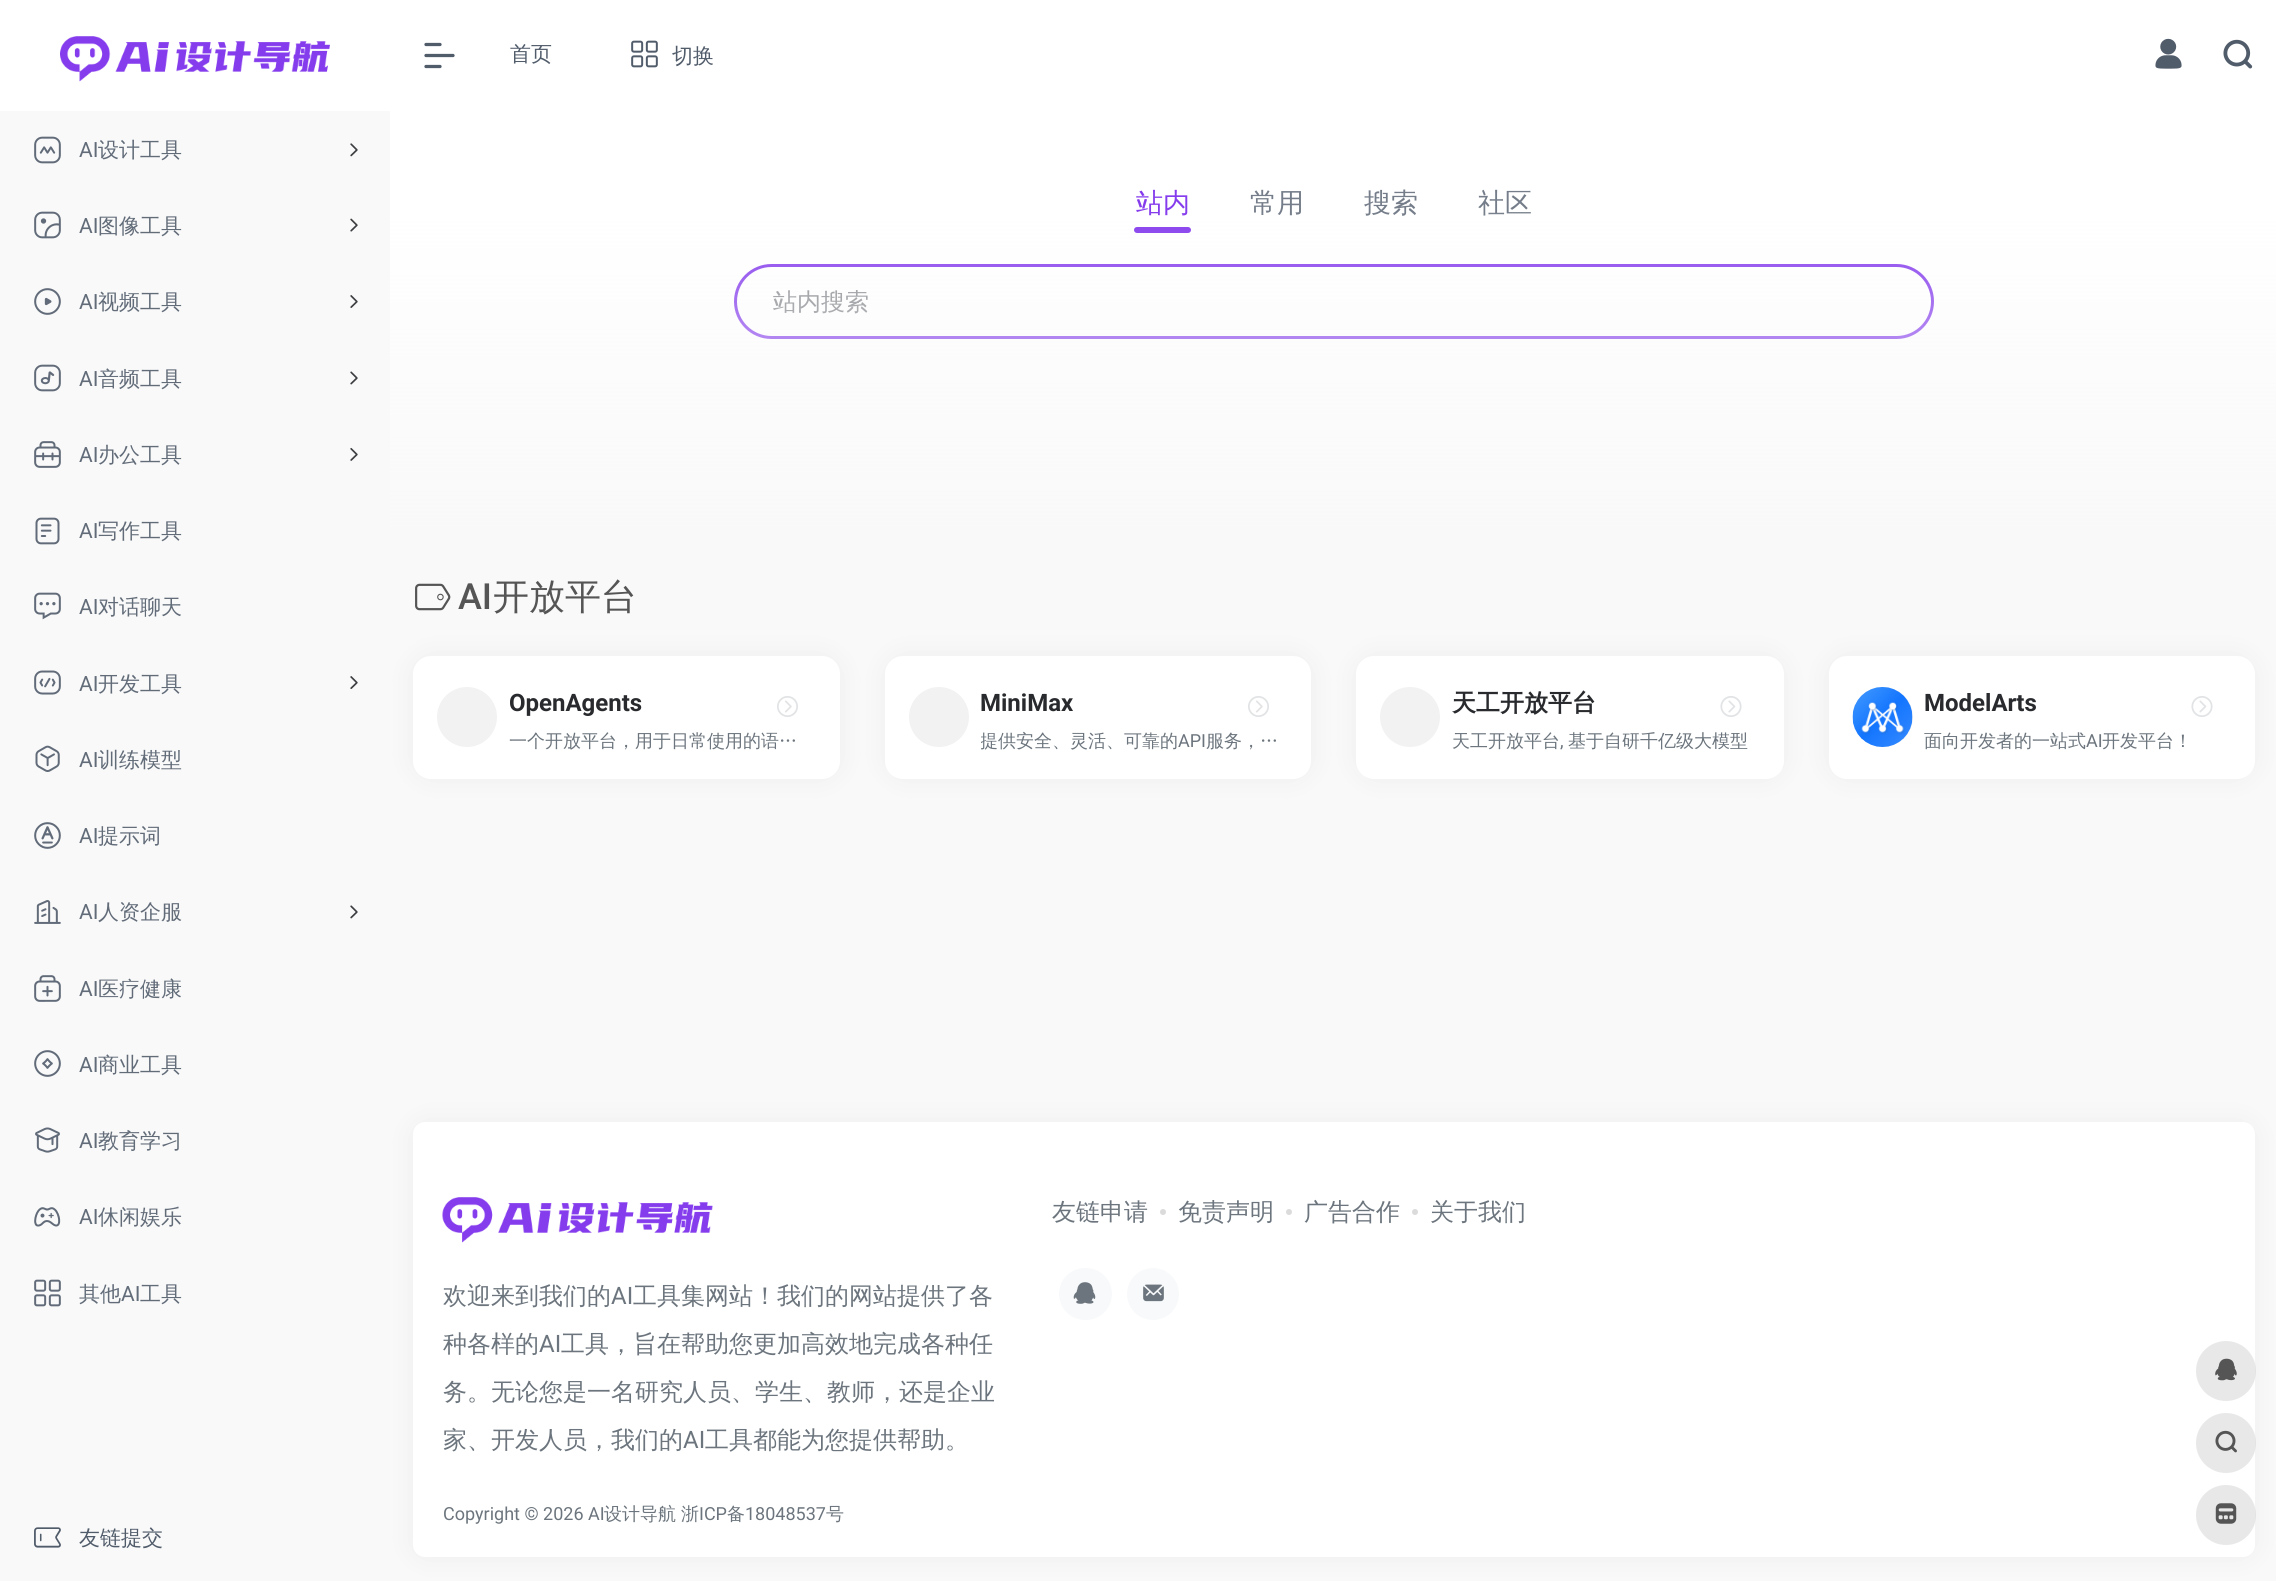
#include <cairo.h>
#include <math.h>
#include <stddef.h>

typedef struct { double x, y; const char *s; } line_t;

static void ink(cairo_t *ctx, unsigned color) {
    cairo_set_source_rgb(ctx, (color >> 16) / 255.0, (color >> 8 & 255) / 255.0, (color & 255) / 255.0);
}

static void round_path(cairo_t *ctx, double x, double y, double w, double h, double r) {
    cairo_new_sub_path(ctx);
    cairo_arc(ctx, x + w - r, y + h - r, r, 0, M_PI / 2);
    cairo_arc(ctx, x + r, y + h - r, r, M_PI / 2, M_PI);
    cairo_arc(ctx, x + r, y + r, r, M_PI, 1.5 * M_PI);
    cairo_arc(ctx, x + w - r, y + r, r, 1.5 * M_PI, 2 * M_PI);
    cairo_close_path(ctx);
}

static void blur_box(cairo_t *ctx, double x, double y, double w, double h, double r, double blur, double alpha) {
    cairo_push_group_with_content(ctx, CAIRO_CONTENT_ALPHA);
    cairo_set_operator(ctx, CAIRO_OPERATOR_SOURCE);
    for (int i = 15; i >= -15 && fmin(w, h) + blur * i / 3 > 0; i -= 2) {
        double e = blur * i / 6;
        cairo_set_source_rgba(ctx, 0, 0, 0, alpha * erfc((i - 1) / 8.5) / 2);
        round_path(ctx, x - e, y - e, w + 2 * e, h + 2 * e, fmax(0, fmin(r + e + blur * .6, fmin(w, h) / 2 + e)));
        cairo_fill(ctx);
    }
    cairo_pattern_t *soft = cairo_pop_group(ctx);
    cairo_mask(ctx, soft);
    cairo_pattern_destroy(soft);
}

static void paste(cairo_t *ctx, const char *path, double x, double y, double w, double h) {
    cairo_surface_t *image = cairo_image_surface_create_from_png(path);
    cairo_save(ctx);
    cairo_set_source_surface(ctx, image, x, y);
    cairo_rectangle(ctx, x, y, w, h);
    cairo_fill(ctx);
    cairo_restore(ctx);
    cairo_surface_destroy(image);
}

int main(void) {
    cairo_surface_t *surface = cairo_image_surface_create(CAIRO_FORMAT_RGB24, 2276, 1581);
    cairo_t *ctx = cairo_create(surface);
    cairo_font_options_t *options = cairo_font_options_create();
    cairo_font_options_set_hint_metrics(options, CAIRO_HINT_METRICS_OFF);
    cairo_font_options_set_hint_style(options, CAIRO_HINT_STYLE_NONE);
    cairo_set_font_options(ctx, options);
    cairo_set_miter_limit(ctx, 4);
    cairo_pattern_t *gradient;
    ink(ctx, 0xF9F9F9);
    cairo_paint(ctx);
    ink(ctx, 0xFFFFFF);
    cairo_rectangle(ctx, 0, 0, 390, 111);
    cairo_fill(ctx);
    paste(ctx, "media/1.png", 60, 36, 270, 46);
    paste(ctx, "media/2.png", 34, 136, 27, 28);
    cairo_select_font_face(ctx, "Roboto", CAIRO_FONT_SLANT_NORMAL, CAIRO_FONT_WEIGHT_NORMAL);
    cairo_set_font_size(ctx, 21);
    ink(ctx, 0x626C79);
    cairo_move_to(ctx, 79, 157);
    cairo_show_text(ctx, "AI");
    cairo_select_font_face(ctx, "WenQuanYi Zen Hei Medium", CAIRO_FONT_SLANT_NORMAL, CAIRO_FONT_WEIGHT_NORMAL);
    cairo_move_to(ctx, 98, 157);
    cairo_show_text(ctx, "设计工具");
    paste(ctx, "media/3.png", 350, 143, 8, 14);
    paste(ctx, "media/4.png", 34, 211, 27, 28);
    cairo_select_font_face(ctx, "Roboto", CAIRO_FONT_SLANT_NORMAL, CAIRO_FONT_WEIGHT_NORMAL);
    cairo_move_to(ctx, 79, 233);
    cairo_show_text(ctx, "AI");
    cairo_select_font_face(ctx, "WenQuanYi Zen Hei Medium", CAIRO_FONT_SLANT_NORMAL, CAIRO_FONT_WEIGHT_NORMAL);
    cairo_move_to(ctx, 98, 233);
    cairo_show_text(ctx, "图像工具");
    paste(ctx, "media/5.png", 350, 218, 8, 14);
    paste(ctx, "media/6.png", 34, 288, 27, 27);
    cairo_select_font_face(ctx, "Roboto", CAIRO_FONT_SLANT_NORMAL, CAIRO_FONT_WEIGHT_NORMAL);
    cairo_move_to(ctx, 79, 309);
    cairo_show_text(ctx, "AI");
    cairo_select_font_face(ctx, "WenQuanYi Zen Hei Medium", CAIRO_FONT_SLANT_NORMAL, CAIRO_FONT_WEIGHT_NORMAL);
    cairo_move_to(ctx, 98, 309);
    cairo_show_text(ctx, "视频工具");
    paste(ctx, "media/7.png", 350, 295, 8, 13);
    paste(ctx, "media/8.png", 34, 364, 27, 28);
    cairo_select_font_face(ctx, "Roboto", CAIRO_FONT_SLANT_NORMAL, CAIRO_FONT_WEIGHT_NORMAL);
    cairo_move_to(ctx, 79, 386);
    cairo_show_text(ctx, "AI");
    cairo_select_font_face(ctx, "WenQuanYi Zen Hei Medium", CAIRO_FONT_SLANT_NORMAL, CAIRO_FONT_WEIGHT_NORMAL);
    cairo_move_to(ctx, 98, 386);
    cairo_show_text(ctx, "音频工具");
    paste(ctx, "media/9.png", 350, 371, 8, 14);
    paste(ctx, "media/10.png", 34, 441, 27, 27);
    cairo_select_font_face(ctx, "Roboto", CAIRO_FONT_SLANT_NORMAL, CAIRO_FONT_WEIGHT_NORMAL);
    cairo_move_to(ctx, 79, 462);
    cairo_show_text(ctx, "AI");
    cairo_select_font_face(ctx, "WenQuanYi Zen Hei Medium", CAIRO_FONT_SLANT_NORMAL, CAIRO_FONT_WEIGHT_NORMAL);
    cairo_move_to(ctx, 98, 462);
    cairo_show_text(ctx, "办公工具");
    paste(ctx, "media/11.png", 350, 447, 8, 14);
    paste(ctx, "media/12.png", 35, 517, 25, 28);
    cairo_select_font_face(ctx, "Roboto", CAIRO_FONT_SLANT_NORMAL, CAIRO_FONT_WEIGHT_NORMAL);
    cairo_move_to(ctx, 79, 538);
    cairo_show_text(ctx, "AI");
    cairo_select_font_face(ctx, "WenQuanYi Zen Hei Medium", CAIRO_FONT_SLANT_NORMAL, CAIRO_FONT_WEIGHT_NORMAL);
    cairo_move_to(ctx, 98, 538);
    cairo_show_text(ctx, "写作工具");
    paste(ctx, "media/13.png", 34, 592, 27, 28);
    cairo_select_font_face(ctx, "Roboto", CAIRO_FONT_SLANT_NORMAL, CAIRO_FONT_WEIGHT_NORMAL);
    cairo_move_to(ctx, 79, 614);
    cairo_show_text(ctx, "AI");
    cairo_select_font_face(ctx, "WenQuanYi Zen Hei Medium", CAIRO_FONT_SLANT_NORMAL, CAIRO_FONT_WEIGHT_NORMAL);
    cairo_move_to(ctx, 98, 614);
    cairo_show_text(ctx, "对话聊天");
    paste(ctx, "media/14.png", 34, 670, 27, 25);
    cairo_select_font_face(ctx, "Roboto", CAIRO_FONT_SLANT_NORMAL, CAIRO_FONT_WEIGHT_NORMAL);
    cairo_move_to(ctx, 79, 691);
    cairo_show_text(ctx, "AI");
    cairo_select_font_face(ctx, "WenQuanYi Zen Hei Medium", CAIRO_FONT_SLANT_NORMAL, CAIRO_FONT_WEIGHT_NORMAL);
    cairo_move_to(ctx, 98, 691);
    cairo_show_text(ctx, "开发工具");
    paste(ctx, "media/15.png", 350, 676, 8, 13);
    paste(ctx, "media/16.png", 35, 745, 25, 27);
    cairo_select_font_face(ctx, "Roboto", CAIRO_FONT_SLANT_NORMAL, CAIRO_FONT_WEIGHT_NORMAL);
    cairo_move_to(ctx, 79, 767);
    cairo_show_text(ctx, "AI");
    cairo_select_font_face(ctx, "WenQuanYi Zen Hei Medium", CAIRO_FONT_SLANT_NORMAL, CAIRO_FONT_WEIGHT_NORMAL);
    cairo_move_to(ctx, 98, 767);
    cairo_show_text(ctx, "训练模型");
    paste(ctx, "media/17.png", 34, 822, 27, 27);
    cairo_select_font_face(ctx, "Roboto", CAIRO_FONT_SLANT_NORMAL, CAIRO_FONT_WEIGHT_NORMAL);
    cairo_move_to(ctx, 79, 843);
    cairo_show_text(ctx, "AI");
    cairo_select_font_face(ctx, "WenQuanYi Zen Hei Medium", CAIRO_FONT_SLANT_NORMAL, CAIRO_FONT_WEIGHT_NORMAL);
    cairo_move_to(ctx, 98, 843);
    cairo_show_text(ctx, "提示词");
    paste(ctx, "media/18.png", 34, 900, 27, 24);
    cairo_select_font_face(ctx, "Roboto", CAIRO_FONT_SLANT_NORMAL, CAIRO_FONT_WEIGHT_NORMAL);
    cairo_move_to(ctx, 79, 919);
    cairo_show_text(ctx, "AI");
    cairo_select_font_face(ctx, "WenQuanYi Zen Hei Medium", CAIRO_FONT_SLANT_NORMAL, CAIRO_FONT_WEIGHT_NORMAL);
    cairo_move_to(ctx, 98, 919);
    cairo_show_text(ctx, "人资企服");
    paste(ctx, "media/19.png", 350, 905, 8, 14);
    paste(ctx, "media/20.png", 34, 975, 27, 27);
    cairo_select_font_face(ctx, "Roboto", CAIRO_FONT_SLANT_NORMAL, CAIRO_FONT_WEIGHT_NORMAL);
    cairo_move_to(ctx, 79, 996);
    cairo_show_text(ctx, "AI");
    cairo_select_font_face(ctx, "WenQuanYi Zen Hei Medium", CAIRO_FONT_SLANT_NORMAL, CAIRO_FONT_WEIGHT_NORMAL);
    cairo_move_to(ctx, 98, 996);
    cairo_show_text(ctx, "医疗健康");
    paste(ctx, "media/21.png", 34, 1050, 27, 27);
    cairo_select_font_face(ctx, "Roboto", CAIRO_FONT_SLANT_NORMAL, CAIRO_FONT_WEIGHT_NORMAL);
    cairo_move_to(ctx, 79, 1072);
    cairo_show_text(ctx, "AI");
    cairo_select_font_face(ctx, "WenQuanYi Zen Hei Medium", CAIRO_FONT_SLANT_NORMAL, CAIRO_FONT_WEIGHT_NORMAL);
    cairo_move_to(ctx, 98, 1072);
    cairo_show_text(ctx, "商业工具");
    paste(ctx, "media/22.png", 35, 1127, 25, 26);
    cairo_select_font_face(ctx, "Roboto", CAIRO_FONT_SLANT_NORMAL, CAIRO_FONT_WEIGHT_NORMAL);
    cairo_move_to(ctx, 79, 1148);
    cairo_show_text(ctx, "AI");
    cairo_select_font_face(ctx, "WenQuanYi Zen Hei Medium", CAIRO_FONT_SLANT_NORMAL, CAIRO_FONT_WEIGHT_NORMAL);
    cairo_move_to(ctx, 98, 1148);
    cairo_show_text(ctx, "教育学习");
    paste(ctx, "media/23.png", 34, 1207, 27, 20);
    cairo_select_font_face(ctx, "Roboto", CAIRO_FONT_SLANT_NORMAL, CAIRO_FONT_WEIGHT_NORMAL);
    cairo_move_to(ctx, 79, 1224);
    cairo_show_text(ctx, "AI");
    cairo_select_font_face(ctx, "WenQuanYi Zen Hei Medium", CAIRO_FONT_SLANT_NORMAL, CAIRO_FONT_WEIGHT_NORMAL);
    cairo_move_to(ctx, 98, 1224);
    cairo_show_text(ctx, "休闲娱乐");
    paste(ctx, "media/24.png", 34, 1279, 27, 28);
    cairo_move_to(ctx, 79, 1301);
    cairo_show_text(ctx, "其他");
    cairo_select_font_face(ctx, "Roboto", CAIRO_FONT_SLANT_NORMAL, CAIRO_FONT_WEIGHT_NORMAL);
    cairo_move_to(ctx, 121, 1301);
    cairo_show_text(ctx, "AI");
    cairo_select_font_face(ctx, "WenQuanYi Zen Hei Medium", CAIRO_FONT_SLANT_NORMAL, CAIRO_FONT_WEIGHT_NORMAL);
    cairo_move_to(ctx, 140, 1301);
    cairo_show_text(ctx, "工具");
    paste(ctx, "media/25.png", 34, 1527, 27, 21);
    ink(ctx, 0x515C6B);
    cairo_move_to(ctx, 79, 1545);
    cairo_show_text(ctx, "友链提交");
    gradient = cairo_pattern_create_linear(2142, 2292, 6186, -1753);
    cairo_pattern_add_color_stop_rgba(gradient, 0, 1, 1, 1, 1);
    cairo_pattern_add_color_stop_rgba(gradient, 0.5, 1, 1, 1, 1);
    cairo_pattern_add_color_stop_rgba(gradient, 1, 0.961, 0.961, 0.984, 1);
    cairo_set_source(ctx, gradient);
    cairo_pattern_destroy(gradient);
    cairo_rectangle(ctx, 390, 0, 1886, 540);
    cairo_fill(ctx);
    cairo_new_path(ctx);
    cairo_move_to(ctx, 426, 44.5);
    cairo_line_to(ctx, 440, 44.5);
    cairo_move_to(ctx, 426, 55.5);
    cairo_line_to(ctx, 453, 55.5);
    cairo_move_to(ctx, 426, 66.5);
    cairo_line_to(ctx, 440, 66.5);
    ink(ctx, 0x515C6B);
    cairo_set_line_width(ctx, 3.3);
    cairo_set_line_cap(ctx, CAIRO_LINE_CAP_ROUND);
    cairo_set_line_join(ctx, CAIRO_LINE_JOIN_ROUND);
    cairo_stroke(ctx);
    cairo_move_to(ctx, 510, 61);
    cairo_show_text(ctx, "首页");
    paste(ctx, "media/26.png", 631, 40, 27, 28);
    cairo_move_to(ctx, 672, 63);
    cairo_show_text(ctx, "切换");
    paste(ctx, "media/27.png", 2155, 38, 27, 31);
    paste(ctx, "media/28.png", 2223, 39, 30, 30);
    cairo_set_font_size(ctx, 27);
    ink(ctx, 0x853CED);
    cairo_move_to(ctx, 1136, 212);
    cairo_show_text(ctx, "站内");
    ink(ctx, 0x747D89);
    {
        static const line_t items[] = {
            {1250, 212, "常用"},
            {1364, 212, "搜索"},
            {1478, 212, "社区"},
        };
        for (size_t i = 0; i < sizeof items / sizeof *items; i++) {
            cairo_move_to(ctx, items[i].x, items[i].y);
            cairo_show_text(ctx, items[i].s);
        }
    }
    ink(ctx, 0x853CED);
    round_path(ctx, 1134, 227, 57, 6, 3);
    cairo_fill(ctx);
    round_path(ctx, 735.5, 265.5, 1197, 72, 36);
    cairo_set_line_width(ctx, 3);
    cairo_set_line_cap(ctx, CAIRO_LINE_CAP_BUTT);
    cairo_set_line_join(ctx, CAIRO_LINE_JOIN_MITER);
    cairo_stroke(ctx);
    cairo_set_font_size(ctx, 24);
    ink(ctx, 0x888A8F);
    cairo_move_to(ctx, 773, 310);
    cairo_show_text(ctx, "站内搜索");
    gradient = cairo_pattern_create_linear(1334, 542, 1334, 122);
    cairo_pattern_add_color_stop_rgba(gradient, 0, 0.976, 0.976, 0.976, 1);
    cairo_pattern_add_color_stop_rgba(gradient, 0.8, 0.976, 0.976, 0.976, 0);
    cairo_set_source(ctx, gradient);
    cairo_pattern_destroy(gradient);
    cairo_rectangle(ctx, 390, 213, 1886, 327);
    cairo_fill(ctx);
    paste(ctx, "media/29.png", 415, 583, 36, 28);
    cairo_select_font_face(ctx, "Roboto Medium", CAIRO_FONT_SLANT_NORMAL, CAIRO_FONT_WEIGHT_NORMAL);
    cairo_set_font_size(ctx, 36);
    ink(ctx, 0x555555);
    cairo_move_to(ctx, 458, 609);
    cairo_show_text(ctx, "AI");
    cairo_select_font_face(ctx, "WenQuanYi Zen Hei Medium", CAIRO_FONT_SLANT_NORMAL, CAIRO_FONT_WEIGHT_NORMAL);
    cairo_move_to(ctx, 493, 609);
    cairo_show_text(ctx, "开放平台");
    ink(ctx, 0x9E9E9E);
    blur_box(ctx, 420, 663, 413, 108, 11, 15, 0.2);
    ink(ctx, 0xFFFFFF);
    round_path(ctx, 413, 656, 427, 123, 18);
    cairo_fill(ctx);
    ink(ctx, 0xF2F2F2);
    cairo_arc(ctx, 467, 717, 30, 0, 2 * M_PI);
    cairo_fill(ctx);
    cairo_select_font_face(ctx, "Roboto", CAIRO_FONT_SLANT_NORMAL, CAIRO_FONT_WEIGHT_BOLD);
    cairo_set_font_size(ctx, 24);
    ink(ctx, 0x282A2D);
    cairo_move_to(ctx, 509, 711);
    cairo_show_text(ctx, "OpenAgents");
    cairo_select_font_face(ctx, "WenQuanYi Zen Hei Medium", CAIRO_FONT_SLANT_NORMAL, CAIRO_FONT_WEIGHT_NORMAL);
    cairo_set_font_size(ctx, 18);
    ink(ctx, 0x6C757D);
    cairo_move_to(ctx, 509, 747);
    cairo_show_text(ctx, "一个开放平台，用于日常使用的语…");
    paste(ctx, "media/30.png", 777, 696, 21, 21);
    ink(ctx, 0x9E9E9E);
    blur_box(ctx, 893, 663, 411, 108, 11, 15, 0.2);
    ink(ctx, 0xFFFFFF);
    round_path(ctx, 885, 656, 426, 123, 18);
    cairo_fill(ctx);
    ink(ctx, 0xF2F2F2);
    cairo_arc(ctx, 939, 717, 30, 0, 2 * M_PI);
    cairo_fill(ctx);
    cairo_select_font_face(ctx, "Roboto", CAIRO_FONT_SLANT_NORMAL, CAIRO_FONT_WEIGHT_BOLD);
    cairo_set_font_size(ctx, 24);
    ink(ctx, 0x282A2D);
    cairo_move_to(ctx, 980, 711);
    cairo_show_text(ctx, "MiniMax");
    cairo_save(ctx);
    cairo_rectangle(ctx, 981, 728, 299, 27);
    cairo_clip(ctx);
    cairo_select_font_face(ctx, "WenQuanYi Zen Hei Medium", CAIRO_FONT_SLANT_NORMAL, CAIRO_FONT_WEIGHT_NORMAL);
    cairo_set_font_size(ctx, 18);
    ink(ctx, 0x6C757D);
    cairo_move_to(ctx, 980, 747);
    cairo_show_text(ctx, "提供安全、灵活、可靠的");
    cairo_restore(ctx);
    cairo_select_font_face(ctx, "Roboto", CAIRO_FONT_SLANT_NORMAL, CAIRO_FONT_WEIGHT_NORMAL);
    cairo_set_font_size(ctx, 18);
    ink(ctx, 0x6C757D);
    cairo_move_to(ctx, 1178, 747);
    cairo_show_text(ctx, "API");
    cairo_select_font_face(ctx, "WenQuanYi Zen Hei Medium", CAIRO_FONT_SLANT_NORMAL, CAIRO_FONT_WEIGHT_NORMAL);
    cairo_move_to(ctx, 1206, 747);
    cairo_show_text(ctx, "服务，…");
    paste(ctx, "media/30.png", 1248, 696, 21, 21);
    ink(ctx, 0x9E9E9E);
    blur_box(ctx, 1364, 663, 412, 108, 11, 15, 0.2);
    ink(ctx, 0xFFFFFF);
    round_path(ctx, 1356, 656, 428, 123, 18);
    cairo_fill(ctx);
    ink(ctx, 0xF2F2F2);
    cairo_arc(ctx, 1410, 717, 30, 0, 2 * M_PI);
    cairo_fill(ctx);
    cairo_select_font_face(ctx, "WenQuanYi Zen Hei", CAIRO_FONT_SLANT_NORMAL, CAIRO_FONT_WEIGHT_BOLD);
    cairo_set_font_size(ctx, 24);
    ink(ctx, 0x282A2D);
    cairo_move_to(ctx, 1452, 711);
    cairo_show_text(ctx, "天工开放平台");
    cairo_select_font_face(ctx, "WenQuanYi Zen Hei Medium", CAIRO_FONT_SLANT_NORMAL, CAIRO_FONT_WEIGHT_NORMAL);
    cairo_set_font_size(ctx, 18);
    ink(ctx, 0x6C757D);
    cairo_move_to(ctx, 1452, 747);
    cairo_show_text(ctx, "天工开放平台");
    cairo_select_font_face(ctx, "Roboto", CAIRO_FONT_SLANT_NORMAL, CAIRO_FONT_WEIGHT_NORMAL);
    cairo_move_to(ctx, 1560, 747);
    cairo_show_text(ctx, ",");
    cairo_select_font_face(ctx, "WenQuanYi Zen Hei Medium", CAIRO_FONT_SLANT_NORMAL, CAIRO_FONT_WEIGHT_NORMAL);
    cairo_move_to(ctx, 1568, 747);
    cairo_show_text(ctx, "基于自研千亿级大模型");
    paste(ctx, "media/31.png", 1720, 696, 22, 21);
    ink(ctx, 0x9E9E9E);
    blur_box(ctx, 1836, 663, 411, 108, 11, 15, 0.2);
    ink(ctx, 0xFFFFFF);
    round_path(ctx, 1829, 656, 426, 123, 18);
    cairo_fill(ctx);
    ink(ctx, 0xF2F2F2);
    cairo_arc(ctx, 1883, 717, 30, 0, 2 * M_PI);
    cairo_fill(ctx);
    paste(ctx, "media/32.png", 1852, 687, 61, 60);
    cairo_select_font_face(ctx, "Roboto", CAIRO_FONT_SLANT_NORMAL, CAIRO_FONT_WEIGHT_BOLD);
    cairo_set_font_size(ctx, 24);
    ink(ctx, 0x282A2D);
    cairo_move_to(ctx, 1924, 711);
    cairo_show_text(ctx, "ModelArts");
    cairo_select_font_face(ctx, "WenQuanYi Zen Hei Medium", CAIRO_FONT_SLANT_NORMAL, CAIRO_FONT_WEIGHT_NORMAL);
    cairo_set_font_size(ctx, 18);
    ink(ctx, 0x6C757D);
    cairo_move_to(ctx, 1924, 747);
    cairo_show_text(ctx, "面向开发者的一站式");
    cairo_select_font_face(ctx, "Roboto", CAIRO_FONT_SLANT_NORMAL, CAIRO_FONT_WEIGHT_NORMAL);
    cairo_move_to(ctx, 2086, 747);
    cairo_show_text(ctx, "AI");
    cairo_select_font_face(ctx, "WenQuanYi Zen Hei Medium", CAIRO_FONT_SLANT_NORMAL, CAIRO_FONT_WEIGHT_NORMAL);
    cairo_move_to(ctx, 2102, 747);
    cairo_show_text(ctx, "开发平台！");
    paste(ctx, "media/31.png", 2191, 696, 22, 21);
    ink(ctx, 0x9E9E9E);
    blur_box(ctx, 420, 1130, 1827, 420, 5, 15, 0.2);
    ink(ctx, 0xFFFFFF);
    round_path(ctx, 413, 1122, 1842, 435, 12);
    cairo_fill(ctx);
    cairo_set_font_size(ctx, 24);
    ink(ctx, 0x6C757D);
    cairo_move_to(ctx, 1052, 1220);
    cairo_show_text(ctx, "友链申请");
    ink(ctx, 0xDBDBDB);
    cairo_new_path(ctx);
    cairo_arc(ctx, 1163, 1212, 3, 0, 2 * M_PI);
    cairo_fill(ctx);
    ink(ctx, 0x6C757D);
    cairo_move_to(ctx, 1178, 1220);
    cairo_show_text(ctx, "免责声明");
    ink(ctx, 0xDBDBDB);
    cairo_new_path(ctx);
    cairo_arc(ctx, 1289, 1212, 3, 0, 2 * M_PI);
    cairo_fill(ctx);
    ink(ctx, 0x6C757D);
    cairo_move_to(ctx, 1304, 1220);
    cairo_show_text(ctx, "广告合作");
    ink(ctx, 0xDBDBDB);
    cairo_new_path(ctx);
    cairo_arc(ctx, 1415, 1212, 3, 0, 2 * M_PI);
    cairo_fill(ctx);
    ink(ctx, 0x6C757D);
    cairo_move_to(ctx, 1430, 1220);
    cairo_show_text(ctx, "关于我们");
    ink(ctx, 0xF8F9FA);
    round_path(ctx, 1059, 1268, 53, 52, 26);
    cairo_fill(ctx);
    paste(ctx, "media/33.png", 1073, 1282, 23, 22);
    cairo_arc(ctx, 1153, 1294, 26, 0, 2 * M_PI);
    cairo_fill(ctx);
    paste(ctx, "media/34.png", 1143, 1284, 21, 18);
    paste(ctx, "media/35.png", 442, 1197, 271, 46);
    ink(ctx, 0x6C757D);
    cairo_move_to(ctx, 443, 1304);
    cairo_show_text(ctx, "欢迎来到我们的");
    cairo_select_font_face(ctx, "Roboto", CAIRO_FONT_SLANT_NORMAL, CAIRO_FONT_WEIGHT_NORMAL);
    cairo_move_to(ctx, 611, 1304);
    cairo_show_text(ctx, "AI");
    cairo_select_font_face(ctx, "WenQuanYi Zen Hei Medium", CAIRO_FONT_SLANT_NORMAL, CAIRO_FONT_WEIGHT_NORMAL);
    cairo_move_to(ctx, 633, 1304);
    cairo_show_text(ctx, "工具集网站！我们的网站提供了各");
    cairo_move_to(ctx, 443, 1352);
    cairo_show_text(ctx, "种各样的");
    cairo_select_font_face(ctx, "Roboto", CAIRO_FONT_SLANT_NORMAL, CAIRO_FONT_WEIGHT_NORMAL);
    cairo_move_to(ctx, 539, 1352);
    cairo_show_text(ctx, "AI");
    cairo_select_font_face(ctx, "WenQuanYi Zen Hei Medium", CAIRO_FONT_SLANT_NORMAL, CAIRO_FONT_WEIGHT_NORMAL);
    {
        static const line_t items[] = {
            {561, 1352, "工具，旨在帮助您更加高效地完成各种任"},
            {443, 1400, "务。无论您是一名研究人员、学生、教师，还是企业"},
            {443, 1448, "家、开发人员，我们的"},
        };
        for (size_t i = 0; i < sizeof items / sizeof *items; i++) {
            cairo_move_to(ctx, items[i].x, items[i].y);
            cairo_show_text(ctx, items[i].s);
        }
    }
    cairo_select_font_face(ctx, "Roboto", CAIRO_FONT_SLANT_NORMAL, CAIRO_FONT_WEIGHT_NORMAL);
    cairo_move_to(ctx, 683, 1448);
    cairo_show_text(ctx, "AI");
    cairo_select_font_face(ctx, "WenQuanYi Zen Hei Medium", CAIRO_FONT_SLANT_NORMAL, CAIRO_FONT_WEIGHT_NORMAL);
    cairo_move_to(ctx, 705, 1448);
    cairo_show_text(ctx, "工具都能为您提供帮助。");
    cairo_select_font_face(ctx, "Roboto", CAIRO_FONT_SLANT_NORMAL, CAIRO_FONT_WEIGHT_NORMAL);
    cairo_set_font_size(ctx, 18);
    cairo_move_to(ctx, 443, 1520);
    cairo_show_text(ctx, "Copyright © 2026 AI");
    cairo_select_font_face(ctx, "WenQuanYi Zen Hei Medium", CAIRO_FONT_SLANT_NORMAL, CAIRO_FONT_WEIGHT_NORMAL);
    cairo_move_to(ctx, 604, 1520);
    cairo_show_text(ctx, "设计导航");
    cairo_move_to(ctx, 681, 1520);
    cairo_show_text(ctx, "浙");
    cairo_select_font_face(ctx, "Roboto", CAIRO_FONT_SLANT_NORMAL, CAIRO_FONT_WEIGHT_NORMAL);
    cairo_move_to(ctx, 699, 1520);
    cairo_show_text(ctx, "ICP");
    cairo_select_font_face(ctx, "WenQuanYi Zen Hei Medium", CAIRO_FONT_SLANT_NORMAL, CAIRO_FONT_WEIGHT_NORMAL);
    cairo_move_to(ctx, 727, 1520);
    cairo_show_text(ctx, "备");
    cairo_select_font_face(ctx, "Roboto", CAIRO_FONT_SLANT_NORMAL, CAIRO_FONT_WEIGHT_NORMAL);
    cairo_move_to(ctx, 745, 1520);
    cairo_show_text(ctx, "18048537");
    cairo_select_font_face(ctx, "WenQuanYi Zen Hei Medium", CAIRO_FONT_SLANT_NORMAL, CAIRO_FONT_WEIGHT_NORMAL);
    cairo_move_to(ctx, 826, 1520);
    cairo_show_text(ctx, "号");
    cairo_set_source_rgba(ctx, 0.824, 0.824, 0.824, 0.5);
    cairo_new_path(ctx);
    cairo_arc(ctx, 2226, 1371, 30, 0, 2 * M_PI);
    cairo_fill(ctx);
    paste(ctx, "media/36.png", 2215, 1358, 22, 23);
    cairo_arc(ctx, 2226, 1443, 30, 0, 2 * M_PI);
    cairo_fill(ctx);
    paste(ctx, "media/37.png", 2215, 1430, 22, 23);
    cairo_arc(ctx, 2226, 1515, 30, 0, 2 * M_PI);
    cairo_fill(ctx);
    paste(ctx, "media/38.png", 2215, 1503, 22, 21);
    cairo_surface_write_to_png(surface, "image.png");
    cairo_font_options_destroy(options);
    cairo_destroy(ctx);
    cairo_surface_destroy(surface);
    return 0;
}
